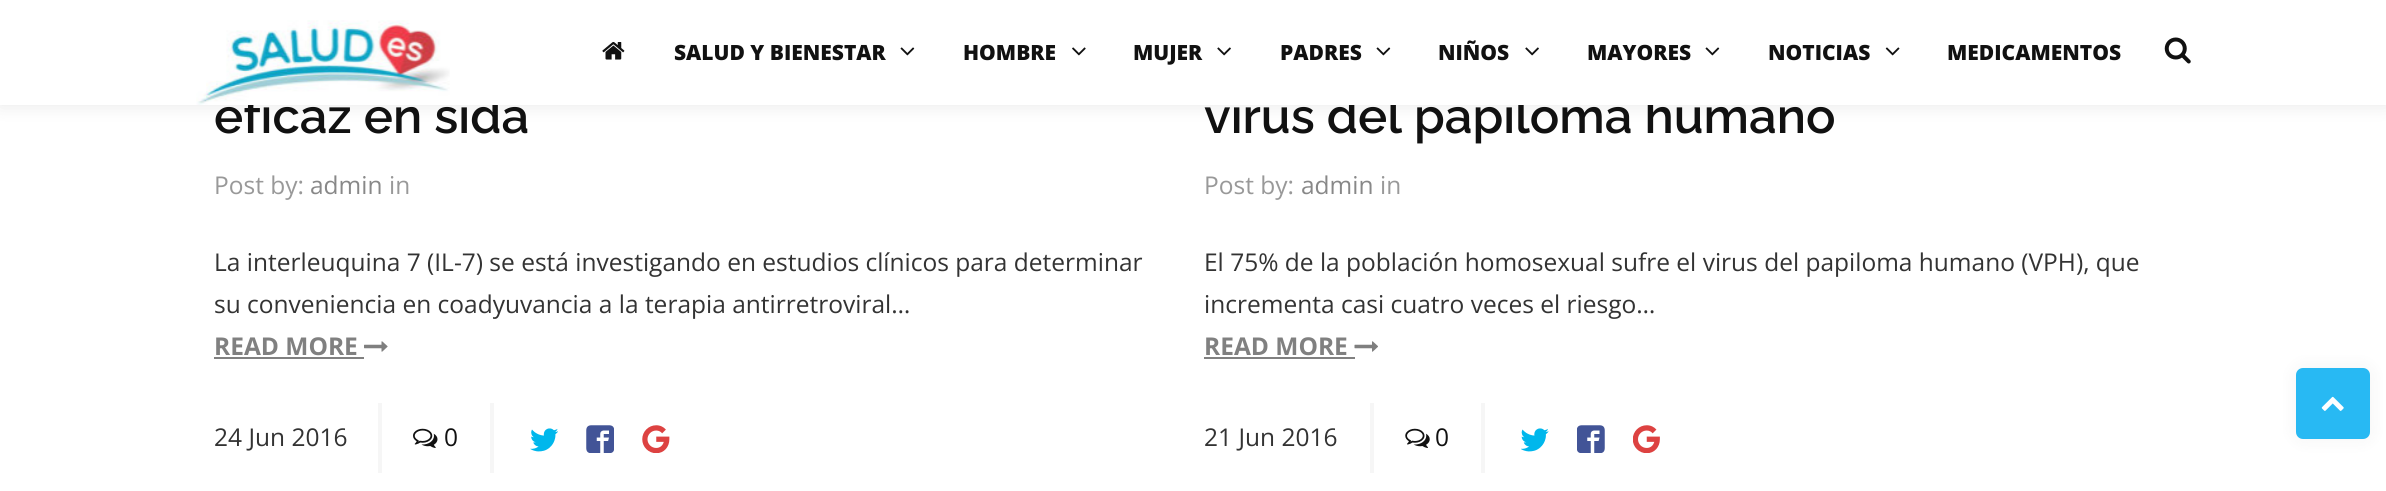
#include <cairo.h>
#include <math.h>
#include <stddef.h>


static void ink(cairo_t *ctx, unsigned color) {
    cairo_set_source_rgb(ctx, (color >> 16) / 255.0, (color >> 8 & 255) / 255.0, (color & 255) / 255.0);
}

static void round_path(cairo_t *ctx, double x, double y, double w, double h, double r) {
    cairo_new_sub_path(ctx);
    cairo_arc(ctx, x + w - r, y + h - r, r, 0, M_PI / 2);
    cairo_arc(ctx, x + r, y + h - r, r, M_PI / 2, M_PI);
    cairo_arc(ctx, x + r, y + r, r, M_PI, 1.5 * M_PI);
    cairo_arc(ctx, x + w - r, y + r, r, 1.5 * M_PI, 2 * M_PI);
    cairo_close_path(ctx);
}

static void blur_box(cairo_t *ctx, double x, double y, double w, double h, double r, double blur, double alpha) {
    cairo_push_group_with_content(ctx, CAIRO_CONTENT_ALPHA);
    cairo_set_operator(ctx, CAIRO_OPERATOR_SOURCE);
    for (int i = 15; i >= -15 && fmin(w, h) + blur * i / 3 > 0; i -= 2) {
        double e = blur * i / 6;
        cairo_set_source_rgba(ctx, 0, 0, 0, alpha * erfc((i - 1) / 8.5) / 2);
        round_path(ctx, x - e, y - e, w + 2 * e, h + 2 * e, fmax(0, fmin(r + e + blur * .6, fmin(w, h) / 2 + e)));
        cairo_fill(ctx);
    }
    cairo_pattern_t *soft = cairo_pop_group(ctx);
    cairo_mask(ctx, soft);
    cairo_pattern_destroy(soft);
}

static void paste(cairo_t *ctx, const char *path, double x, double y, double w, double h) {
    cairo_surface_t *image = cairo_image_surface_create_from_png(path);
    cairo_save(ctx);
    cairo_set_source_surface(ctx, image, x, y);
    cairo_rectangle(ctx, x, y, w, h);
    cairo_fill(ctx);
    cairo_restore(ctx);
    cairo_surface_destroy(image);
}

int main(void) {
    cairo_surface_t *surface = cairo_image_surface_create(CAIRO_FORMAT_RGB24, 2386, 491);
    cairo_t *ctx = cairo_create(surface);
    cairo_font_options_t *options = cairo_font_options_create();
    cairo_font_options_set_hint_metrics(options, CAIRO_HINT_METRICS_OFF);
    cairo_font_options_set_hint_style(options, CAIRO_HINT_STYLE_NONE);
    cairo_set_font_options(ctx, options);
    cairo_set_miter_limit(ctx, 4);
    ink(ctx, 0xFFFFFF);
    cairo_paint(ctx);
    ink(ctx, 0x000000);
    blur_box(ctx, 0, 0, 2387, 105, 0, 9, 0.1);
    cairo_select_font_face(ctx, "Raleway SemiBold", CAIRO_FONT_SLANT_NORMAL, CAIRO_FONT_WEIGHT_NORMAL);
    cairo_set_font_size(ctx, 49);
    ink(ctx, 0x111111);
    cairo_move_to(ctx, 214, 133);
    cairo_show_text(ctx, "eficaz en sida");
    cairo_move_to(ctx, 1204, 133);
    cairo_show_text(ctx, "virus del papiloma humano");
    ink(ctx, 0xFFFFFF);
    cairo_rectangle(ctx, 0, 0, 2386, 105);
    cairo_fill(ctx);
    paste(ctx, "media/1.png", 196, 20, 254, 85);
    paste(ctx, "media/2.png", 602, 42, 23, 18);
    cairo_select_font_face(ctx, "Open Sans ExtraBold", CAIRO_FONT_SLANT_NORMAL, CAIRO_FONT_WEIGHT_NORMAL);
    cairo_set_font_size(ctx, 21);
    ink(ctx, 0x111111);
    cairo_move_to(ctx, 674, 60);
    cairo_show_text(ctx, "SALUD Y BIENESTAR");
    paste(ctx, "media/3.png", 900, 47, 15, 9);
    cairo_move_to(ctx, 963, 60);
    cairo_show_text(ctx, "HOMBRE");
    paste(ctx, "media/4.png", 1072, 47, 14, 9);
    cairo_move_to(ctx, 1133, 60);
    cairo_show_text(ctx, "MUJER");
    paste(ctx, "media/5.png", 1217, 47, 14, 9);
    cairo_move_to(ctx, 1280, 60);
    cairo_show_text(ctx, "PADRES");
    paste(ctx, "media/3.png", 1376, 47, 15, 9);
    cairo_move_to(ctx, 1438, 60);
    cairo_show_text(ctx, "NIÑOS");
    paste(ctx, "media/5.png", 1525, 47, 14, 9);
    cairo_move_to(ctx, 1587, 60);
    cairo_show_text(ctx, "MAYORES");
    paste(ctx, "media/3.png", 1705, 47, 15, 9);
    cairo_move_to(ctx, 1768, 60);
    cairo_show_text(ctx, "NOTICIAS");
    paste(ctx, "media/6.png", 1885, 47, 15, 9);
    cairo_move_to(ctx, 1947, 60);
    cairo_show_text(ctx, "MEDICAMENTOS");
    paste(ctx, "media/7.png", 2164, 37, 27, 27);
    cairo_select_font_face(ctx, "Open Sans", CAIRO_FONT_SLANT_NORMAL, CAIRO_FONT_WEIGHT_NORMAL);
    cairo_set_font_size(ctx, 24.5);
    ink(ctx, 0x999999);
    cairo_move_to(ctx, 214, 194);
    cairo_show_text(ctx, "Post by:");
    ink(ctx, 0x888888);
    cairo_move_to(ctx, 310, 194);
    cairo_show_text(ctx, "admin");
    ink(ctx, 0x999999);
    cairo_move_to(ctx, 389, 194);
    cairo_show_text(ctx, "in");
    ink(ctx, 0x333333);
    cairo_move_to(ctx, 214, 271);
    cairo_show_text(ctx, "La interleuquina 7 (IL-7) se está investigando en estudios clínicos para determinar");
    cairo_move_to(ctx, 214, 313);
    cairo_show_text(ctx, "su conveniencia en coadyuvancia a la terapia antirretroviral…");
    cairo_select_font_face(ctx, "Open Sans", CAIRO_FONT_SLANT_NORMAL, CAIRO_FONT_WEIGHT_BOLD);
    ink(ctx, 0x808080);
    cairo_move_to(ctx, 214, 355);
    cairo_show_text(ctx, "READ MORE");
    cairo_rectangle(ctx, 214, 357, 150, 2);
    cairo_fill(ctx);
    paste(ctx, "media/8.png", 364, 341, 24, 11);
    ink(ctx, 0xF6F6F6);
    cairo_rectangle(ctx, 378, 403, 4, 70);
    cairo_fill(ctx);
    cairo_select_font_face(ctx, "Open Sans", CAIRO_FONT_SLANT_NORMAL, CAIRO_FONT_WEIGHT_NORMAL);
    ink(ctx, 0x333333);
    cairo_move_to(ctx, 214, 446);
    cairo_show_text(ctx, "24 Jun 2016");
    ink(ctx, 0xF6F6F6);
    cairo_rectangle(ctx, 490, 403, 4, 70);
    cairo_fill(ctx);
    paste(ctx, "media/9.png", 413, 428, 25, 20);
    ink(ctx, 0x111111);
    cairo_move_to(ctx, 444, 446);
    cairo_show_text(ctx, "0");
    paste(ctx, "media/10.png", 530, 428, 28, 24);
    paste(ctx, "media/11.png", 586, 425, 28, 28);
    paste(ctx, "media/12.png", 642, 425, 28, 28);
    ink(ctx, 0x999999);
    cairo_move_to(ctx, 1204, 194);
    cairo_show_text(ctx, "Post by:");
    ink(ctx, 0x888888);
    cairo_move_to(ctx, 1301, 194);
    cairo_show_text(ctx, "admin");
    ink(ctx, 0x999999);
    cairo_move_to(ctx, 1380, 194);
    cairo_show_text(ctx, "in");
    ink(ctx, 0x333333);
    cairo_move_to(ctx, 1204, 271);
    cairo_show_text(ctx, "El 75% de la población homosexual sufre el virus del papiloma humano (VPH), que");
    cairo_move_to(ctx, 1204, 313);
    cairo_show_text(ctx, "incrementa casi cuatro veces el riesgo…");
    cairo_select_font_face(ctx, "Open Sans", CAIRO_FONT_SLANT_NORMAL, CAIRO_FONT_WEIGHT_BOLD);
    ink(ctx, 0x808080);
    cairo_move_to(ctx, 1204, 355);
    cairo_show_text(ctx, "READ MORE");
    cairo_rectangle(ctx, 1204, 357, 151, 2);
    cairo_fill(ctx);
    paste(ctx, "media/13.png", 1354, 341, 24, 11);
    ink(ctx, 0xF6F6F6);
    cairo_rectangle(ctx, 1370, 403, 4, 70);
    cairo_fill(ctx);
    cairo_select_font_face(ctx, "Open Sans", CAIRO_FONT_SLANT_NORMAL, CAIRO_FONT_WEIGHT_NORMAL);
    ink(ctx, 0x333333);
    cairo_move_to(ctx, 1204, 446);
    cairo_show_text(ctx, "21 Jun 2016");
    ink(ctx, 0xF6F6F6);
    cairo_rectangle(ctx, 1481, 403, 4, 70);
    cairo_fill(ctx);
    paste(ctx, "media/14.png", 1405, 428, 25, 20);
    ink(ctx, 0x111111);
    cairo_move_to(ctx, 1435, 446);
    cairo_show_text(ctx, "0");
    paste(ctx, "media/15.png", 1521, 428, 28, 24);
    paste(ctx, "media/16.png", 1577, 425, 28, 28);
    paste(ctx, "media/17.png", 1633, 425, 27, 28);
    ink(ctx, 0x020202);
    blur_box(ctx, 2296, 368, 74, 71, 7, 9, 0.05);
    ink(ctx, 0x28B9F3);
    round_path(ctx, 2296, 368, 74, 71, 7);
    cairo_fill(ctx);
    paste(ctx, "media/18.png", 2321, 396, 23, 15);
    cairo_surface_write_to_png(surface, "image.png");
    cairo_font_options_destroy(options);
    cairo_destroy(ctx);
    cairo_surface_destroy(surface);
    return 0;
}
